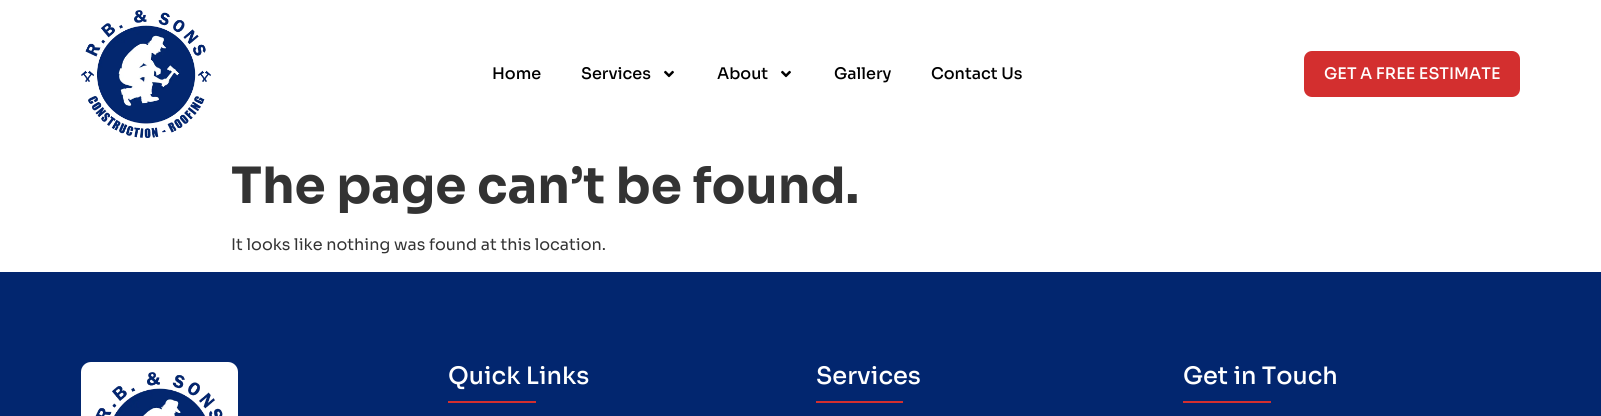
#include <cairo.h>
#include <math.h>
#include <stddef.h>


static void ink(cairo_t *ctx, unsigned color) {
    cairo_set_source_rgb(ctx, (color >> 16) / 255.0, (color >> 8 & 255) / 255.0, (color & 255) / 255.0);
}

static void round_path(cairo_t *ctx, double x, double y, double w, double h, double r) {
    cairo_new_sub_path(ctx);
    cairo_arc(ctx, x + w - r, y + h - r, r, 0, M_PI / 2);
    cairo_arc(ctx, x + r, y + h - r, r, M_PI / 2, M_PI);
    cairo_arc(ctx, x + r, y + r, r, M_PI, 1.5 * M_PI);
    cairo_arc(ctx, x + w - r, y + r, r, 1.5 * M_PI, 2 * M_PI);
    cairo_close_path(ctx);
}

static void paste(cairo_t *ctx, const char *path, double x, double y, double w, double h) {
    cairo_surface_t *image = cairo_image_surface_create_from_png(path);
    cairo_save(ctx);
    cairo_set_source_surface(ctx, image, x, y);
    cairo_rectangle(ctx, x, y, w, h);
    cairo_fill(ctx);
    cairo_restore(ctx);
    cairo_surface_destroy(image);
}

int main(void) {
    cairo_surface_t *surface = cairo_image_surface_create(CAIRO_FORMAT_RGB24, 1601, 416);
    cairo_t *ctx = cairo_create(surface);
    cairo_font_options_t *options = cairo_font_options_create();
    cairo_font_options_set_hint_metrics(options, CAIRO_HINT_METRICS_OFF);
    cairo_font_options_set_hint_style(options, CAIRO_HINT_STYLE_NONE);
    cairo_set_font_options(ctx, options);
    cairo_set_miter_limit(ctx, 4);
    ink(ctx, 0xFFFFFF);
    cairo_paint(ctx);
    paste(ctx, "media/1.png", 81, 10, 130, 128);
    cairo_select_font_face(ctx, "Sora Medium", CAIRO_FONT_SLANT_NORMAL, CAIRO_FONT_WEIGHT_NORMAL);
    cairo_set_font_size(ctx, 16);
    ink(ctx, 0x000000);
    cairo_move_to(ctx, 492, 79);
    cairo_show_text(ctx, "Home");
    cairo_move_to(ctx, 581, 79);
    cairo_show_text(ctx, "Services");
    paste(ctx, "media/2.png", 664, 70, 10, 8);
    cairo_move_to(ctx, 717, 79);
    cairo_show_text(ctx, "About");
    paste(ctx, "media/2.png", 781, 70, 10, 8);
    cairo_move_to(ctx, 834, 79);
    cairo_show_text(ctx, "Gallery");
    cairo_move_to(ctx, 931, 79);
    cairo_show_text(ctx, "Contact Us");
    ink(ctx, 0xD32F2F);
    round_path(ctx, 1304, 51, 216, 46, 8);
    cairo_fill(ctx);
    ink(ctx, 0xFFFFFF);
    cairo_move_to(ctx, 1324, 79);
    cairo_show_text(ctx, "GET A FREE ESTIMATE");
    cairo_select_font_face(ctx, "Sora", CAIRO_FONT_SLANT_NORMAL, CAIRO_FONT_WEIGHT_BOLD);
    cairo_set_font_size(ctx, 50);
    ink(ctx, 0x333333);
    cairo_move_to(ctx, 231, 203);
    cairo_show_text(ctx, "The page can’t be found.");
    cairo_select_font_face(ctx, "Sora", CAIRO_FONT_SLANT_NORMAL, CAIRO_FONT_WEIGHT_NORMAL);
    cairo_set_font_size(ctx, 16);
    cairo_move_to(ctx, 231, 250);
    cairo_show_text(ctx, "It looks like nothing was found at this location.");
    ink(ctx, 0x02266F);
    cairo_rectangle(ctx, 0, 272, 1601, 144);
    cairo_fill(ctx);
    ink(ctx, 0xFFFFFF);
    round_path(ctx, 81, 362, 157, 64, 10);
    cairo_fill(ctx);
    paste(ctx, "media/3.png", 95, 372, 128, 44);
    cairo_select_font_face(ctx, "Sora Medium", CAIRO_FONT_SLANT_NORMAL, CAIRO_FONT_WEIGHT_NORMAL);
    cairo_set_font_size(ctx, 24);
    cairo_move_to(ctx, 448, 384);
    cairo_show_text(ctx, "Quick Links");
    ink(ctx, 0xD32F2F);
    cairo_rectangle(ctx, 448, 401, 88, 2);
    cairo_fill(ctx);
    ink(ctx, 0xFFFFFF);
    cairo_move_to(ctx, 816, 384);
    cairo_show_text(ctx, "Services");
    ink(ctx, 0xD32F2F);
    cairo_rectangle(ctx, 816, 401, 87, 2);
    cairo_fill(ctx);
    ink(ctx, 0xFFFFFF);
    cairo_move_to(ctx, 1183, 384);
    cairo_show_text(ctx, "Get in Touch");
    ink(ctx, 0xD32F2F);
    cairo_rectangle(ctx, 1183, 401, 88, 2);
    cairo_fill(ctx);
    cairo_surface_write_to_png(surface, "image.png");
    cairo_font_options_destroy(options);
    cairo_destroy(ctx);
    cairo_surface_destroy(surface);
    return 0;
}
